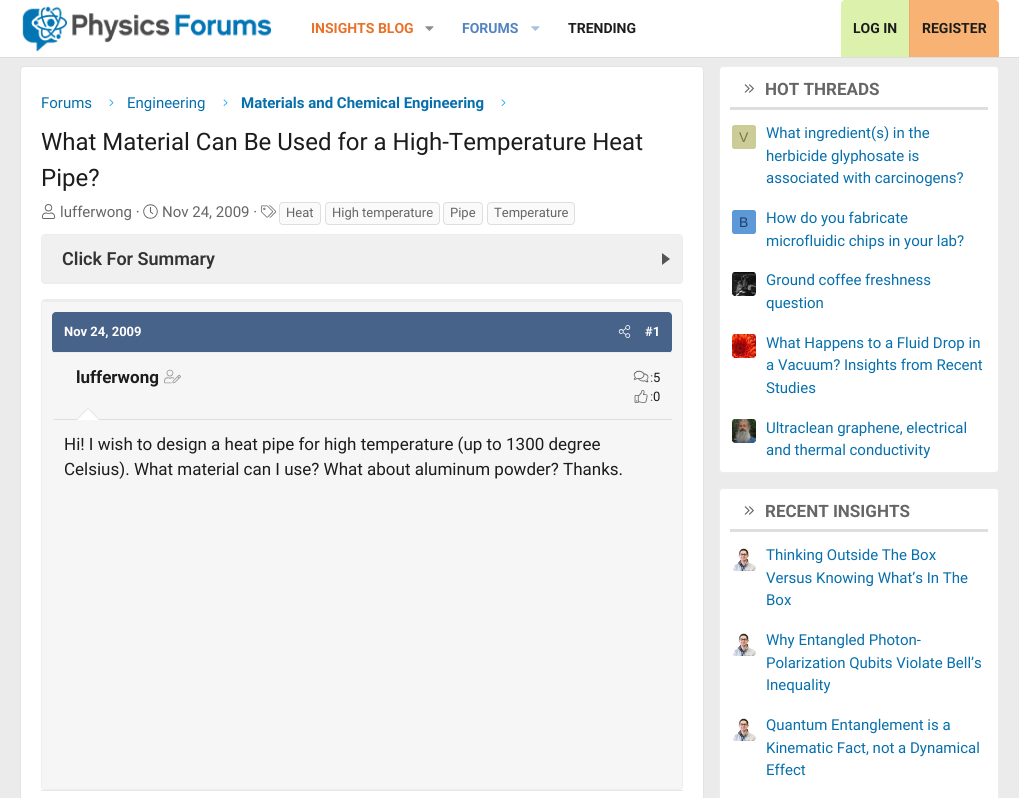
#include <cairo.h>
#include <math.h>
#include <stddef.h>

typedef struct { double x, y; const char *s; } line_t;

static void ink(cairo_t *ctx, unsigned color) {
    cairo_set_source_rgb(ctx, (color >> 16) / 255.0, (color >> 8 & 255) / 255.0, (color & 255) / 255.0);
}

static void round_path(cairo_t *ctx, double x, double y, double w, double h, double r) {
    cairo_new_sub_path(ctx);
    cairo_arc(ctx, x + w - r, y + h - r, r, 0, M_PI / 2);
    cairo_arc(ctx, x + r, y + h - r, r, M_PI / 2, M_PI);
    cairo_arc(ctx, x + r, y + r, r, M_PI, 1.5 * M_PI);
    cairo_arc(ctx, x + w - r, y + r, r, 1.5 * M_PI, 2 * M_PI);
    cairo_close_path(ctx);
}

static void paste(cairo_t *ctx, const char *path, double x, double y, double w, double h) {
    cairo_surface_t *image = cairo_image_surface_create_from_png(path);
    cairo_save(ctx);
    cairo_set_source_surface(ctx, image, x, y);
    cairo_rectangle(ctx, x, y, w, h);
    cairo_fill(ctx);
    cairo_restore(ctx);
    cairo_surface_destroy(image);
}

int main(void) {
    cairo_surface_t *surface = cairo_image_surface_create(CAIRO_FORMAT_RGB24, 1019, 798);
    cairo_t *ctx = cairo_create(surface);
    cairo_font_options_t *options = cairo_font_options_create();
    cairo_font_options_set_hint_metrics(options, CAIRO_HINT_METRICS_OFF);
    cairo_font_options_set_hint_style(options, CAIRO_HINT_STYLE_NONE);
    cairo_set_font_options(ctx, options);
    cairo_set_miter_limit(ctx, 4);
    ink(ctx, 0xEBEBEB);
    cairo_paint(ctx);
    ink(ctx, 0xFFFFFF);
    cairo_rectangle(ctx, 0, 0, 1019, 57);
    cairo_fill(ctx);
    ink(ctx, 0xDEDEDE);
    cairo_rectangle(ctx, 0, 57, 1019, 1);
    cairo_fill(ctx);
    paste(ctx, "media/1.png", 22, 6, 250, 46);
    cairo_select_font_face(ctx, "Roboto", CAIRO_FONT_SLANT_NORMAL, CAIRO_FONT_WEIGHT_BOLD);
    cairo_set_font_size(ctx, 14);
    ink(ctx, 0xEA7027);
    cairo_move_to(ctx, 311, 33);
    cairo_show_text(ctx, "INSIGHTS BLOG");
    paste(ctx, "media/2.png", 425, 26, 9, 5);
    ink(ctx, 0x5384C1);
    cairo_move_to(ctx, 462, 33);
    cairo_show_text(ctx, "FORUMS");
    paste(ctx, "media/3.png", 531, 26, 9, 5);
    ink(ctx, 0x1C1C1C);
    cairo_move_to(ctx, 568, 33);
    cairo_show_text(ctx, "TRENDING");
    ink(ctx, 0xDBF1AC);
    cairo_new_path(ctx);
    cairo_move_to(ctx, 845, 0);
    cairo_line_to(ctx, 909, 0);
    cairo_line_to(ctx, 909, 57);
    cairo_line_to(ctx, 841, 57);
    cairo_line_to(ctx, 841, 4);
    cairo_curve_to(ctx, 841, 2, 843, 0, 845, 0);
    cairo_close_path(ctx);
    cairo_fill(ctx);
    ink(ctx, 0x1C1C1C);
    cairo_move_to(ctx, 853, 33);
    cairo_show_text(ctx, "LOG IN");
    ink(ctx, 0xF8B273);
    cairo_new_path(ctx);
    cairo_move_to(ctx, 909, 0);
    cairo_line_to(ctx, 995, 0);
    cairo_curve_to(ctx, 997, 0, 999, 2, 999, 4);
    cairo_line_to(ctx, 999, 57);
    cairo_line_to(ctx, 909, 57);
    cairo_close_path(ctx);
    cairo_fill(ctx);
    ink(ctx, 0xEDAA6F);
    cairo_rectangle(ctx, 909, 0, 1, 57);
    cairo_fill(ctx);
    ink(ctx, 0x1C1C1C);
    cairo_move_to(ctx, 922, 33);
    cairo_show_text(ctx, "REGISTER");
    ink(ctx, 0xFFFFFF);
    round_path(ctx, 20.5, 66.5, 683, 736, 3.5);
    cairo_fill_preserve(ctx);
    ink(ctx, 0xE4E2E2);
    cairo_set_line_width(ctx, 1);
    cairo_stroke(ctx);
    cairo_select_font_face(ctx, "Roboto", CAIRO_FONT_SLANT_NORMAL, CAIRO_FONT_WEIGHT_NORMAL);
    cairo_set_font_size(ctx, 15);
    ink(ctx, 0x066FAC);
    cairo_move_to(ctx, 41, 108);
    cairo_show_text(ctx, "Forums");
    paste(ctx, "media/4.png", 109, 99, 5, 7);
    cairo_move_to(ctx, 127, 108);
    cairo_show_text(ctx, "Engineering");
    paste(ctx, "media/4.png", 223, 99, 5, 7);
    cairo_select_font_face(ctx, "Roboto", CAIRO_FONT_SLANT_NORMAL, CAIRO_FONT_WEIGHT_BOLD);
    cairo_move_to(ctx, 241, 108);
    cairo_show_text(ctx, "Materials and Chemical Engineering");
    paste(ctx, "media/4.png", 501, 99, 5, 7);
    cairo_select_font_face(ctx, "Roboto", CAIRO_FONT_SLANT_NORMAL, CAIRO_FONT_WEIGHT_NORMAL);
    cairo_set_font_size(ctx, 24);
    ink(ctx, 0x1C1C1C);
    cairo_move_to(ctx, 41, 150);
    cairo_show_text(ctx, "What Material Can Be Used for a High-Temperature Heat");
    cairo_move_to(ctx, 41, 186);
    cairo_show_text(ctx, "Pipe?");
    paste(ctx, "media/5.png", 41, 204, 15, 15);
    cairo_set_font_size(ctx, 15);
    ink(ctx, 0x666666);
    cairo_move_to(ctx, 60, 217);
    cairo_show_text(ctx, "lufferwong ·");
    paste(ctx, "media/6.png", 143, 204, 15, 15);
    cairo_move_to(ctx, 162, 217);
    cairo_show_text(ctx, "Nov 24, 2009 ·");
    paste(ctx, "media/7.png", 261, 205, 15, 13);
    ink(ctx, 0xFAFAFA);
    round_path(ctx, 279.5, 202.5, 41, 22, 3.5);
    cairo_fill_preserve(ctx);
    ink(ctx, 0xDEDEDE);
    cairo_stroke(ctx);
    cairo_set_font_size(ctx, 13);
    ink(ctx, 0x666666);
    cairo_move_to(ctx, 286, 217);
    cairo_show_text(ctx, "Heat");
    ink(ctx, 0xFAFAFA);
    round_path(ctx, 325.5, 202.5, 114, 22, 3.5);
    cairo_fill_preserve(ctx);
    ink(ctx, 0xDEDEDE);
    cairo_stroke(ctx);
    ink(ctx, 0x666666);
    cairo_move_to(ctx, 332, 217);
    cairo_show_text(ctx, "High temperature");
    ink(ctx, 0xFAFAFA);
    round_path(ctx, 443.5, 202.5, 39, 22, 3.5);
    cairo_fill_preserve(ctx);
    ink(ctx, 0xDEDEDE);
    cairo_stroke(ctx);
    ink(ctx, 0x666666);
    cairo_move_to(ctx, 450, 217);
    cairo_show_text(ctx, "Pipe");
    ink(ctx, 0xFAFAFA);
    round_path(ctx, 487.5, 202.5, 87, 22, 3.5);
    cairo_fill_preserve(ctx);
    ink(ctx, 0xDEDEDE);
    cairo_stroke(ctx);
    ink(ctx, 0x666666);
    cairo_move_to(ctx, 494, 217);
    cairo_show_text(ctx, "Temperature");
    round_path(ctx, 41.5, 234.5, 641, 49, 3.5);
    ink(ctx, 0xEDEDED);
    cairo_stroke(ctx);
    ink(ctx, 0xF0F0F0);
    cairo_new_path(ctx);
    cairo_move_to(ctx, 45, 235);
    cairo_line_to(ctx, 679, 235);
    cairo_curve_to(ctx, 680.5, 235, 682, 236.5, 682, 238);
    cairo_line_to(ctx, 682, 283);
    cairo_line_to(ctx, 42, 283);
    cairo_line_to(ctx, 42, 238);
    cairo_curve_to(ctx, 42, 236.5, 43.5, 235, 45, 235);
    cairo_close_path(ctx);
    cairo_fill(ctx);
    ink(ctx, 0xEDEDED);
    cairo_rectangle(ctx, 42, 282, 640, 1);
    cairo_fill(ctx);
    cairo_select_font_face(ctx, "Roboto SemiBold", CAIRO_FONT_SLANT_NORMAL, CAIRO_FONT_WEIGHT_NORMAL);
    cairo_set_font_size(ctx, 18);
    ink(ctx, 0x333333);
    cairo_move_to(ctx, 62, 265);
    cairo_show_text(ctx, "Click For Summary");
    ink(ctx, 0x545454);
    cairo_new_path(ctx);
    cairo_move_to(ctx, 662, 265);
    cairo_line_to(ctx, 662, 253);
    cairo_line_to(ctx, 670, 259);
    cairo_close_path(ctx);
    cairo_fill(ctx);
    ink(ctx, 0xF6F6F6);
    cairo_new_path(ctx);
    cairo_move_to(ctx, 45, 302);
    cairo_line_to(ctx, 679, 302);
    cairo_curve_to(ctx, 681, 302, 682, 302, 682, 303);
    cairo_line_to(ctx, 682, 786);
    cairo_curve_to(ctx, 682, 788, 681, 789, 679, 789);
    cairo_line_to(ctx, 45, 789);
    cairo_curve_to(ctx, 43, 789, 42, 788, 42, 786);
    cairo_line_to(ctx, 42, 303);
    cairo_curve_to(ctx, 42, 302, 43, 302, 45, 302);
    cairo_close_path(ctx);
    cairo_fill(ctx);
    round_path(ctx, 41.5, 299.5, 641, 490, 3.5);
    ink(ctx, 0xEDEDED);
    cairo_stroke(ctx);
    cairo_rectangle(ctx, 43, 300, 638, 2);
    cairo_fill(ctx);
    ink(ctx, 0x47638A);
    round_path(ctx, 52, 312, 620, 41, 4);
    cairo_fill(ctx);
    ink(ctx, 0xEDEDED);
    cairo_rectangle(ctx, 54, 352, 616, 1);
    cairo_fill(ctx);
    cairo_select_font_face(ctx, "Roboto", CAIRO_FONT_SLANT_NORMAL, CAIRO_FONT_WEIGHT_BOLD);
    cairo_set_font_size(ctx, 13);
    ink(ctx, 0xFFFFFF);
    cairo_move_to(ctx, 64, 336);
    cairo_show_text(ctx, "Nov 24, 2009");
    paste(ctx, "media/8.png", 618, 325, 13, 13);
    cairo_move_to(ctx, 645, 336);
    cairo_show_text(ctx, "#1");
    ink(ctx, 0xDEDEDE);
    cairo_rectangle(ctx, 54, 419, 618, 1);
    cairo_fill(ctx);
    cairo_set_font_size(ctx, 17);
    ink(ctx, 0x1C1C1C);
    cairo_move_to(ctx, 76, 383);
    cairo_show_text(ctx, "lufferwong");
    paste(ctx, "media/9.png", 164, 369, 17, 15);
    paste(ctx, "media/10.png", 633, 370, 16, 13);
    cairo_select_font_face(ctx, "Roboto", CAIRO_FONT_SLANT_NORMAL, CAIRO_FONT_WEIGHT_NORMAL);
    cairo_set_font_size(ctx, 13);
    ink(ctx, 0x666666);
    cairo_move_to(ctx, 650, 382);
    cairo_show_text(ctx, ":");
    ink(ctx, 0x1C1C1C);
    cairo_move_to(ctx, 653, 382);
    cairo_show_text(ctx, "5");
    paste(ctx, "media/11.png", 634, 390, 14, 13);
    ink(ctx, 0x666666);
    cairo_move_to(ctx, 650, 401);
    cairo_show_text(ctx, ":");
    ink(ctx, 0x1C1C1C);
    cairo_move_to(ctx, 653, 401);
    cairo_show_text(ctx, "0");
    ink(ctx, 0xDEDEDE);
    cairo_new_path(ctx);
    cairo_move_to(ctx, 100, 420);
    cairo_line_to(ctx, 76, 420);
    cairo_line_to(ctx, 88, 408);
    cairo_close_path(ctx);
    cairo_fill(ctx);
    ink(ctx, 0xFFFFFF);
    cairo_new_path(ctx);
    cairo_move_to(ctx, 99, 420);
    cairo_line_to(ctx, 77, 420);
    cairo_line_to(ctx, 88, 409);
    cairo_close_path(ctx);
    cairo_fill(ctx);
    cairo_set_font_size(ctx, 17);
    ink(ctx, 0x1C1C1C);
    cairo_move_to(ctx, 64, 450);
    cairo_show_text(ctx, "Hi! I wish to design a heat pipe for high temperature (up to 1300 degree");
    cairo_move_to(ctx, 64, 475);
    cairo_show_text(ctx, "Celsius). What material can I use? What about aluminum powder? Thanks.");
    ink(ctx, 0xE8E8E8);
    cairo_rectangle(ctx, 41, 790, 642, 1);
    cairo_fill(ctx);
    ink(ctx, 0xFFFFFF);
    round_path(ctx, 719.5, 66.5, 279, 406, 3.5);
    cairo_fill_preserve(ctx);
    ink(ctx, 0xEDEDED);
    cairo_stroke(ctx);
    ink(ctx, 0xDEDEDE);
    cairo_rectangle(ctx, 730, 107, 258, 3);
    cairo_fill(ctx);
    paste(ctx, "media/12.png", 744, 84, 10, 9);
    cairo_select_font_face(ctx, "Roboto", CAIRO_FONT_SLANT_NORMAL, CAIRO_FONT_WEIGHT_BOLD);
    ink(ctx, 0x666666);
    cairo_move_to(ctx, 765, 95);
    cairo_show_text(ctx, "HOT THREADS");
    ink(ctx, 0xCCCC99);
    round_path(ctx, 732, 125, 24, 24, 2.5);
    cairo_fill(ctx);
    cairo_select_font_face(ctx, "Liberation Sans", CAIRO_FONT_SLANT_NORMAL, CAIRO_FONT_WEIGHT_NORMAL);
    cairo_set_font_size(ctx, 14);
    ink(ctx, 0x77773C);
    cairo_move_to(ctx, 739, 142);
    cairo_show_text(ctx, "V");
    cairo_select_font_face(ctx, "Roboto", CAIRO_FONT_SLANT_NORMAL, CAIRO_FONT_WEIGHT_NORMAL);
    cairo_set_font_size(ctx, 15);
    ink(ctx, 0x066FAC);
    {
        static const line_t items[] = {
            {766, 138, "What ingredient(s) in the"},
            {766, 161, "herbicide glyphosate is"},
            {766, 183, "associated with carcinogens?"},
        };
        for (size_t i = 0; i < sizeof items / sizeof *items; i++) {
            cairo_move_to(ctx, items[i].x, items[i].y);
            cairo_show_text(ctx, items[i].s);
        }
    }
    ink(ctx, 0x5C99D6);
    round_path(ctx, 732, 210, 24, 24, 2.5);
    cairo_fill(ctx);
    cairo_select_font_face(ctx, "Liberation Sans", CAIRO_FONT_SLANT_NORMAL, CAIRO_FONT_WEIGHT_NORMAL);
    cairo_set_font_size(ctx, 14);
    ink(ctx, 0x1A4066);
    cairo_move_to(ctx, 739, 227);
    cairo_show_text(ctx, "B");
    cairo_select_font_face(ctx, "Roboto", CAIRO_FONT_SLANT_NORMAL, CAIRO_FONT_WEIGHT_NORMAL);
    cairo_set_font_size(ctx, 15);
    ink(ctx, 0x066FAC);
    cairo_move_to(ctx, 766, 223);
    cairo_show_text(ctx, "How do you fabricate");
    cairo_move_to(ctx, 766, 246);
    cairo_show_text(ctx, "microfluidic chips in your lab?");
    paste(ctx, "media/13.png", 732, 272, 24, 24);
    cairo_move_to(ctx, 766, 285);
    cairo_show_text(ctx, "Ground coffee freshness");
    cairo_move_to(ctx, 766, 308);
    cairo_show_text(ctx, "question");
    paste(ctx, "media/14.png", 732, 334, 24, 24);
    {
        static const line_t items[] = {
            {766, 348, "What Happens to a Fluid Drop in"},
            {766, 370, "a Vacuum? Insights from Recent"},
            {766, 393, "Studies"},
        };
        for (size_t i = 0; i < sizeof items / sizeof *items; i++) {
            cairo_move_to(ctx, items[i].x, items[i].y);
            cairo_show_text(ctx, items[i].s);
        }
    }
    paste(ctx, "media/15.png", 732, 419, 24, 24);
    cairo_move_to(ctx, 766, 433);
    cairo_show_text(ctx, "Ultraclean graphene, electrical");
    cairo_move_to(ctx, 766, 455);
    cairo_show_text(ctx, "and thermal conductivity");
    ink(ctx, 0xFFFFFF);
    round_path(ctx, 719.5, 488.5, 279, 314, 3.5);
    cairo_fill_preserve(ctx);
    ink(ctx, 0xEDEDED);
    cairo_stroke(ctx);
    ink(ctx, 0xDEDEDE);
    cairo_rectangle(ctx, 730, 529, 258, 3);
    cairo_fill(ctx);
    paste(ctx, "media/12.png", 744, 506, 10, 9);
    cairo_select_font_face(ctx, "Roboto", CAIRO_FONT_SLANT_NORMAL, CAIRO_FONT_WEIGHT_BOLD);
    cairo_set_font_size(ctx, 17);
    ink(ctx, 0x666666);
    cairo_move_to(ctx, 765, 517);
    cairo_show_text(ctx, "RECENT INSIGHTS");
    paste(ctx, "media/16.png", 733, 548, 23, 23);
    cairo_select_font_face(ctx, "Roboto", CAIRO_FONT_SLANT_NORMAL, CAIRO_FONT_WEIGHT_NORMAL);
    cairo_set_font_size(ctx, 15);
    ink(ctx, 0x066FAC);
    {
        static const line_t items[] = {
            {766, 560, "Thinking Outside The Box"},
            {766, 583, "Versus Knowing What’s In The"},
            {766, 605, "Box"},
        };
        for (size_t i = 0; i < sizeof items / sizeof *items; i++) {
            cairo_move_to(ctx, items[i].x, items[i].y);
            cairo_show_text(ctx, items[i].s);
        }
    }
    paste(ctx, "media/16.png", 733, 633, 23, 23);
    {
        static const line_t items[] = {
            {766, 645, "Why Entangled Photon-"},
            {766, 668, "Polarization Qubits Violate Bell’s"},
            {766, 690, "Inequality"},
        };
        for (size_t i = 0; i < sizeof items / sizeof *items; i++) {
            cairo_move_to(ctx, items[i].x, items[i].y);
            cairo_show_text(ctx, items[i].s);
        }
    }
    paste(ctx, "media/16.png", 733, 718, 23, 23);
    {
        static const line_t items[] = {
            {766, 730, "Quantum Entanglement is a"},
            {766, 753, "Kinematic Fact, not a Dynamical"},
            {766, 775, "Effect"},
        };
        for (size_t i = 0; i < sizeof items / sizeof *items; i++) {
            cairo_move_to(ctx, items[i].x, items[i].y);
            cairo_show_text(ctx, items[i].s);
        }
    }
    cairo_surface_write_to_png(surface, "image.png");
    cairo_font_options_destroy(options);
    cairo_destroy(ctx);
    cairo_surface_destroy(surface);
    return 0;
}
